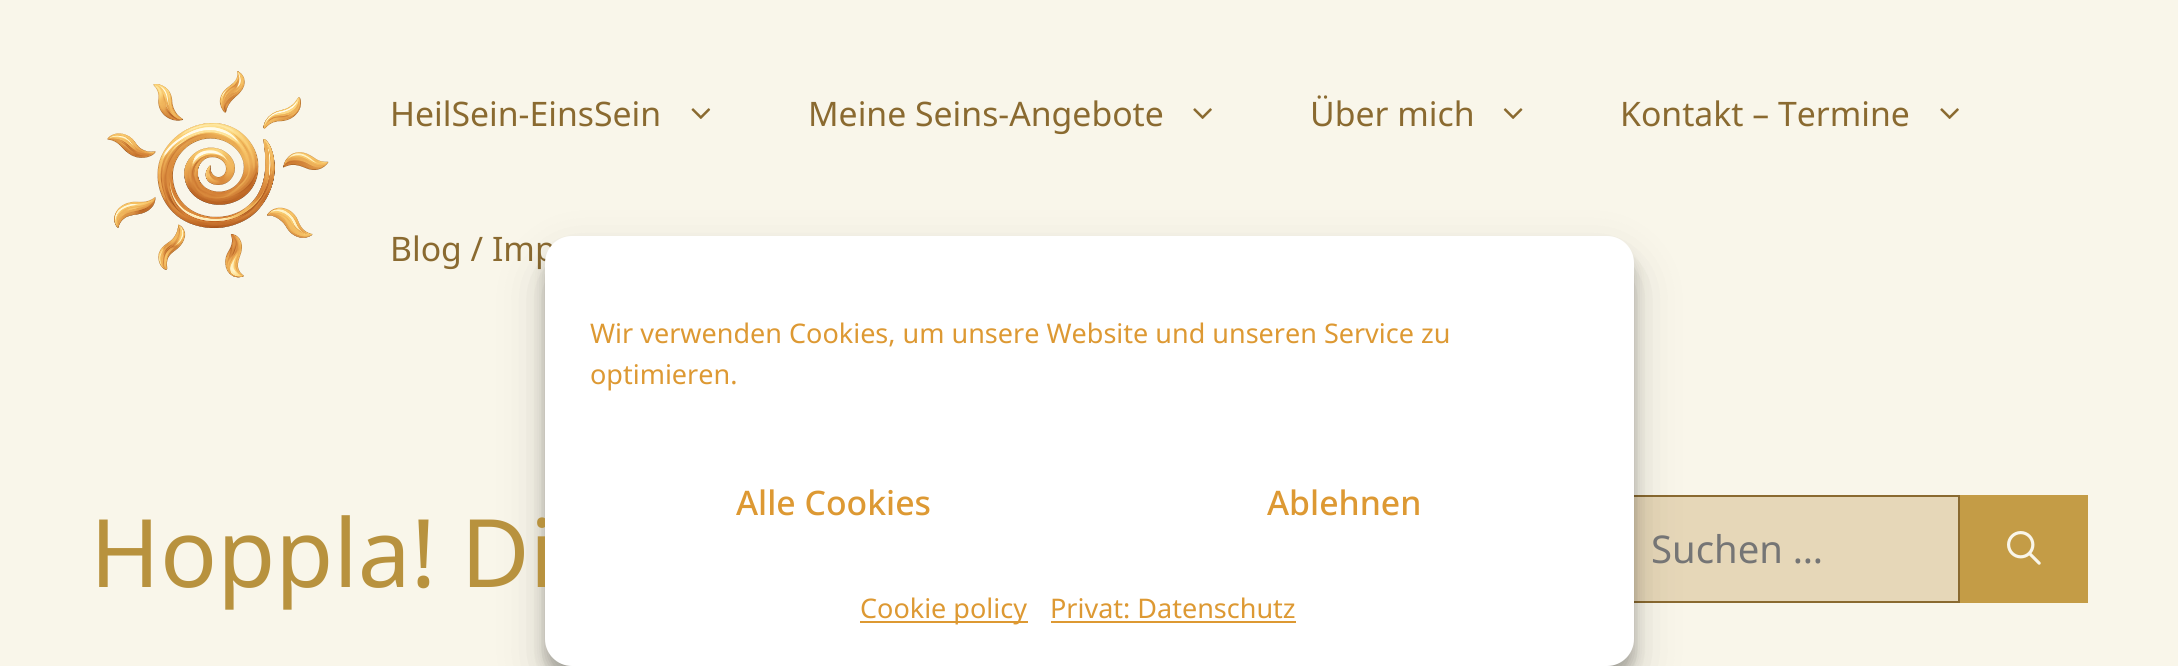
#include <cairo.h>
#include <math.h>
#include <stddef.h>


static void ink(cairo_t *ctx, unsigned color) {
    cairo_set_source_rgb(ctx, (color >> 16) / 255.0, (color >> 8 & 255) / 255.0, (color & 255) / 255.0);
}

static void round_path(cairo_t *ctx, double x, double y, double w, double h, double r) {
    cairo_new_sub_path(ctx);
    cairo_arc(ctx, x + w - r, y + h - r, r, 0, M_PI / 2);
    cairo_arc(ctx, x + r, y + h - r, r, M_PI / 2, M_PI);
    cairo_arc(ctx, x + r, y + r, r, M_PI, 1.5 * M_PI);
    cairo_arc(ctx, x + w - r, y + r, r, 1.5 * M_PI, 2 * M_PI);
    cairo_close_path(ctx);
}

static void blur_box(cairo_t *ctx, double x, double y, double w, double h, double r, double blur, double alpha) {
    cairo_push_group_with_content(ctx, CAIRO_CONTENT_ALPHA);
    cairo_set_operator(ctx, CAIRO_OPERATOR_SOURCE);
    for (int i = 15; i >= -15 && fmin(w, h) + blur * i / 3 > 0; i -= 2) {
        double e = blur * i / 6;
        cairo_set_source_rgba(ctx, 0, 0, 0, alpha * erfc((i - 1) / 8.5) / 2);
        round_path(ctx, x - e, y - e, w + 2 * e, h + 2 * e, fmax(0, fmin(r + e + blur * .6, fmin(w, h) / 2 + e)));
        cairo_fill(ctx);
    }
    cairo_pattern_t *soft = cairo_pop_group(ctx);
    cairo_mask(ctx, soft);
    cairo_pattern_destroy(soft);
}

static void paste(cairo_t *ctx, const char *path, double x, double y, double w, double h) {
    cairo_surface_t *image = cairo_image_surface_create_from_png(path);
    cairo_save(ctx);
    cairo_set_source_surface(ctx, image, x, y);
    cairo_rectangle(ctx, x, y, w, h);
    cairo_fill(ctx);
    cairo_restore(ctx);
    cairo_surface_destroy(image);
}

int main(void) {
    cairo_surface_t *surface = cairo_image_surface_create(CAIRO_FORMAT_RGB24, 2178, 666);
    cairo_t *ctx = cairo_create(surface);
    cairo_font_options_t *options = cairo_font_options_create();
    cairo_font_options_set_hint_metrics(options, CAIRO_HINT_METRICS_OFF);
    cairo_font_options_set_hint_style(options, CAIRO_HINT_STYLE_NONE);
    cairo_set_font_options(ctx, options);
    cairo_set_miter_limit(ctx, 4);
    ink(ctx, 0xF9F6EA);
    cairo_paint(ctx);
    paste(ctx, "media/1.png", 107, 71, 222, 207);
    cairo_select_font_face(ctx, "Noto Sans", CAIRO_FONT_SLANT_NORMAL, CAIRO_FONT_WEIGHT_NORMAL);
    cairo_set_font_size(ctx, 33.75);
    ink(ctx, 0x8A6A30);
    cairo_move_to(ctx, 390, 126);
    cairo_show_text(ctx, "HeilSein-EinsSein");
    paste(ctx, "media/2.png", 691, 108, 20, 11);
    cairo_move_to(ctx, 808, 126);
    cairo_show_text(ctx, "Meine Seins-Angebote");
    paste(ctx, "media/3.png", 1193, 108, 19, 11);
    cairo_move_to(ctx, 1310, 126);
    cairo_show_text(ctx, "Über mich");
    paste(ctx, "media/4.png", 1503, 108, 20, 11);
    cairo_move_to(ctx, 1620, 126);
    cairo_show_text(ctx, "Kontakt – Termine");
    paste(ctx, "media/3.png", 1940, 108, 19, 11);
    cairo_move_to(ctx, 390, 261);
    cairo_show_text(ctx, "Blog / Imp");
    ink(ctx, 0xE6D7B8);
    cairo_rectangle(ctx, 1634, 497, 324, 104);
    cairo_fill(ctx);
    cairo_rectangle(ctx, 1617, 496, 342, 106);
    ink(ctx, 0x8A6A30);
    cairo_stroke(ctx);
    ink(ctx, 0x000000);
    blur_box(ctx, 545, 250, 1089, 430, 27, 7, 0.23);
    blur_box(ctx, 545, 259, 1089, 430, 27, 22.5, 0.19);
    cairo_set_font_size(ctx, 94.5);
    ink(ctx, 0xB8923E);
    cairo_move_to(ctx, 90, 587);
    cairo_show_text(ctx, "Hoppla! Di");
    ink(ctx, 0xFFFFFF);
    round_path(ctx, 545, 236, 1089, 430, 27);
    cairo_fill(ctx);
    cairo_set_font_size(ctx, 27);
    ink(ctx, 0xDD9933);
    cairo_move_to(ctx, 590, 343);
    cairo_show_text(ctx, "Wir verwenden Cookies, um unsere Website und unseren Service zu");
    cairo_move_to(ctx, 590, 384);
    cairo_show_text(ctx, "optimieren.");
    cairo_select_font_face(ctx, "Noto Sans Medium", CAIRO_FONT_SLANT_NORMAL, CAIRO_FONT_WEIGHT_NORMAL);
    cairo_set_font_size(ctx, 33.75);
    cairo_move_to(ctx, 736, 515);
    cairo_show_text(ctx, "Alle Cookies");
    cairo_move_to(ctx, 1267, 515);
    cairo_show_text(ctx, "Ablehnen");
    cairo_rectangle(ctx, 860, 621, 168, 2);
    cairo_fill(ctx);
    cairo_select_font_face(ctx, "Noto Sans", CAIRO_FONT_SLANT_NORMAL, CAIRO_FONT_WEIGHT_NORMAL);
    cairo_set_font_size(ctx, 27);
    cairo_move_to(ctx, 860, 618);
    cairo_show_text(ctx, "Cookie policy");
    cairo_move_to(ctx, 1050, 618);
    cairo_show_text(ctx, "Privat: Datenschutz");
    cairo_rectangle(ctx, 1051, 621, 245, 2);
    cairo_fill(ctx);
    cairo_set_font_size(ctx, 38.25);
    ink(ctx, 0x757575);
    cairo_move_to(ctx, 1651, 563);
    cairo_show_text(ctx, "Suchen …");
    ink(ctx, 0xC49C46);
    cairo_rectangle(ctx, 1960, 495, 128, 108);
    cairo_fill(ctx);
    paste(ctx, "media/5.png", 2007, 531, 34, 34);
    cairo_surface_write_to_png(surface, "image.png");
    cairo_font_options_destroy(options);
    cairo_destroy(ctx);
    cairo_surface_destroy(surface);
    return 0;
}
